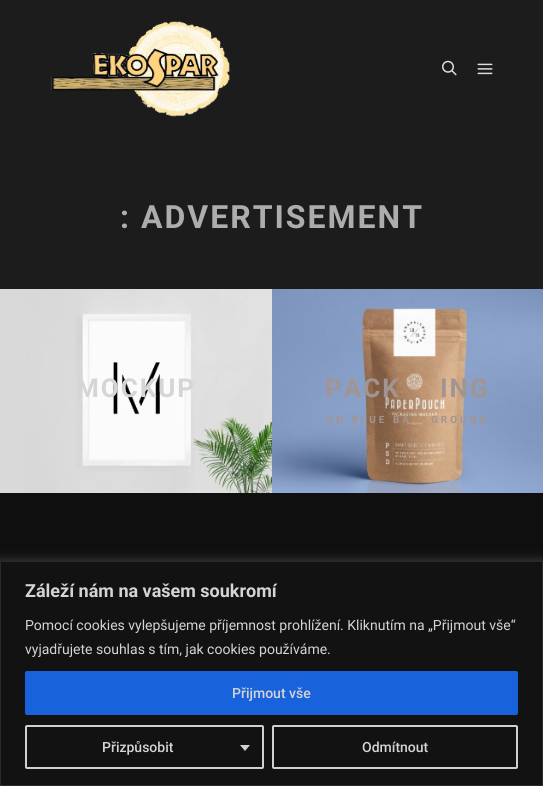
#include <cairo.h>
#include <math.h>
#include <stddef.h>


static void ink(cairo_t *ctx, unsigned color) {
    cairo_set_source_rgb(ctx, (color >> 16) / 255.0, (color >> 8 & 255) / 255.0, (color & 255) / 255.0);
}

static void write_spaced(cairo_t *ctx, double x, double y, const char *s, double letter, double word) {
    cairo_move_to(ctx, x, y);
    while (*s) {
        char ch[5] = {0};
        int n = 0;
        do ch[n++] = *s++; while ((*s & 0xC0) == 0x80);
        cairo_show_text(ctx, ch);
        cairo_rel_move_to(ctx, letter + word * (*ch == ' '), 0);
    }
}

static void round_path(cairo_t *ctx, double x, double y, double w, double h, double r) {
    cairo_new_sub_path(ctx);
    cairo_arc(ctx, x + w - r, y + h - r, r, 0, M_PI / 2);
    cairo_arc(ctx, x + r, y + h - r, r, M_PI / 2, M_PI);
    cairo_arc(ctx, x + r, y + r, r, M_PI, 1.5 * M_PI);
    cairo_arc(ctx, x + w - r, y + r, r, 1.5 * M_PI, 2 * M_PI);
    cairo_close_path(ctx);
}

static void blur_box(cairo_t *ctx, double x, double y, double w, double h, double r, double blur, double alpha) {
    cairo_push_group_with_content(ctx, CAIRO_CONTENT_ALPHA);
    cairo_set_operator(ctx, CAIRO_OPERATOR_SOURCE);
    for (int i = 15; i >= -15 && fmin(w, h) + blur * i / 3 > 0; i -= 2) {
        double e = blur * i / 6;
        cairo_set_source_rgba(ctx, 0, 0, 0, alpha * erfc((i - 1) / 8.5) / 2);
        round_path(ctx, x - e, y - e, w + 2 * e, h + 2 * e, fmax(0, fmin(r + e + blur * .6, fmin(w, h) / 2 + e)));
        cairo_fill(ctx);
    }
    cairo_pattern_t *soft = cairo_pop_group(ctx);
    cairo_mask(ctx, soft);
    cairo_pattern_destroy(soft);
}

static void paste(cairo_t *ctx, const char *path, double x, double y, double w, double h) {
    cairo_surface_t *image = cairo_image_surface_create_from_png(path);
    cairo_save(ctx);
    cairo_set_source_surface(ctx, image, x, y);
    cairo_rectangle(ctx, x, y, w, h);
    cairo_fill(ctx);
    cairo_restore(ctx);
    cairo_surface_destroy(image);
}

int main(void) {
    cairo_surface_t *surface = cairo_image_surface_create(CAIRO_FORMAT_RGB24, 543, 786);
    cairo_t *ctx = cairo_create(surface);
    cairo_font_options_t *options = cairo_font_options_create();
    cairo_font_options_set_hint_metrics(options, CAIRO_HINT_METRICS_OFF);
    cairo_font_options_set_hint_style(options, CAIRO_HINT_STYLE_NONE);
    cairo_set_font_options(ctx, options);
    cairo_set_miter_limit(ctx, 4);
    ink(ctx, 0x0F0F0F);
    cairo_paint(ctx);
    ink(ctx, 0x1C1C1C);
    cairo_rectangle(ctx, 0, 0, 543, 289);
    cairo_fill(ctx);
    paste(ctx, "media/1.png", 51, 21, 179, 96);
    paste(ctx, "media/2.png", 442, 60, 15, 16);
    paste(ctx, "media/3.png", 477, 63, 16, 12);
    cairo_select_font_face(ctx, "Roboto", CAIRO_FONT_SLANT_NORMAL, CAIRO_FONT_WEIGHT_BOLD);
    cairo_set_font_size(ctx, 32);
    ink(ctx, 0xADADAD);
    write_spaced(ctx, 120, 228, ": ADVERTISEMENT", 2, 0);
    paste(ctx, "media/4.png", 0, 289, 272, 204);
    cairo_set_font_size(ctx, 26);
    ink(ctx, 0xD5D5D5);
    write_spaced(ctx, 76, 397, "MOCKUP", 2, 0);
    paste(ctx, "media/5.png", 272, 289, 271, 204);
    ink(ctx, 0xA29491);
    write_spaced(ctx, 325, 397, "PACK", 2, 0);
    write_spaced(ctx, 440, 397, "ING", 2, 0);
    cairo_set_font_size(ctx, 10);
    write_spaced(ctx, 326, 423, "ON BLUE BA", 3, 0);
    write_spaced(ctx, 431, 423, "GROUND", 3, 0);
    ink(ctx, 0xACABAB);
    blur_box(ctx, 0, 560, 543, 225, 0, 5, 0.3);
    ink(ctx, 0x121212);
    cairo_rectangle(ctx, 0.5, 561.5, 542, 224);
    cairo_fill_preserve(ctx);
    ink(ctx, 0x2A2A2A);
    cairo_set_line_width(ctx, 1);
    cairo_stroke(ctx);
    cairo_set_font_size(ctx, 18);
    ink(ctx, 0xD5D5D5);
    cairo_move_to(ctx, 25, 597);
    cairo_show_text(ctx, "Záleží nám na vašem soukromí");
    cairo_select_font_face(ctx, "Roboto", CAIRO_FONT_SLANT_NORMAL, CAIRO_FONT_WEIGHT_NORMAL);
    cairo_set_font_size(ctx, 14);
    cairo_move_to(ctx, 25, 630);
    cairo_show_text(ctx, "Pomocí cookies vylepšujeme příjemnost prohlížení. Kliknutím na „Přijmout vše“");
    cairo_move_to(ctx, 25, 654);
    cairo_show_text(ctx, "vyjadřujete souhlas s tím, jak cookies používáme.");
    ink(ctx, 0x1863DC);
    round_path(ctx, 26, 672, 491, 42, 1);
    cairo_fill_preserve(ctx);
    cairo_set_line_width(ctx, 2);
    cairo_stroke(ctx);
    cairo_select_font_face(ctx, "Roboto Medium", CAIRO_FONT_SLANT_NORMAL, CAIRO_FONT_WEIGHT_NORMAL);
    ink(ctx, 0xD5D5D5);
    cairo_move_to(ctx, 232, 698);
    cairo_show_text(ctx, "Přijmout vše");
    round_path(ctx, 26, 726, 237, 42, 1);
    ink(ctx, 0xD0D0D0);
    cairo_stroke(ctx);
    ink(ctx, 0xD5D5D5);
    cairo_move_to(ctx, 102, 752);
    cairo_show_text(ctx, "Přizpůsobit");
    ink(ctx, 0xD0D0D0);
    cairo_new_path(ctx);
    cairo_move_to(ctx, 240, 745);
    cairo_line_to(ctx, 250, 745);
    cairo_line_to(ctx, 245, 751);
    cairo_close_path(ctx);
    cairo_fill(ctx);
    round_path(ctx, 273, 726, 244, 42, 1);
    cairo_stroke(ctx);
    ink(ctx, 0xD5D5D5);
    cairo_move_to(ctx, 362, 752);
    cairo_show_text(ctx, "Odmítnout");
    cairo_surface_write_to_png(surface, "image.png");
    cairo_font_options_destroy(options);
    cairo_destroy(ctx);
    cairo_surface_destroy(surface);
    return 0;
}
